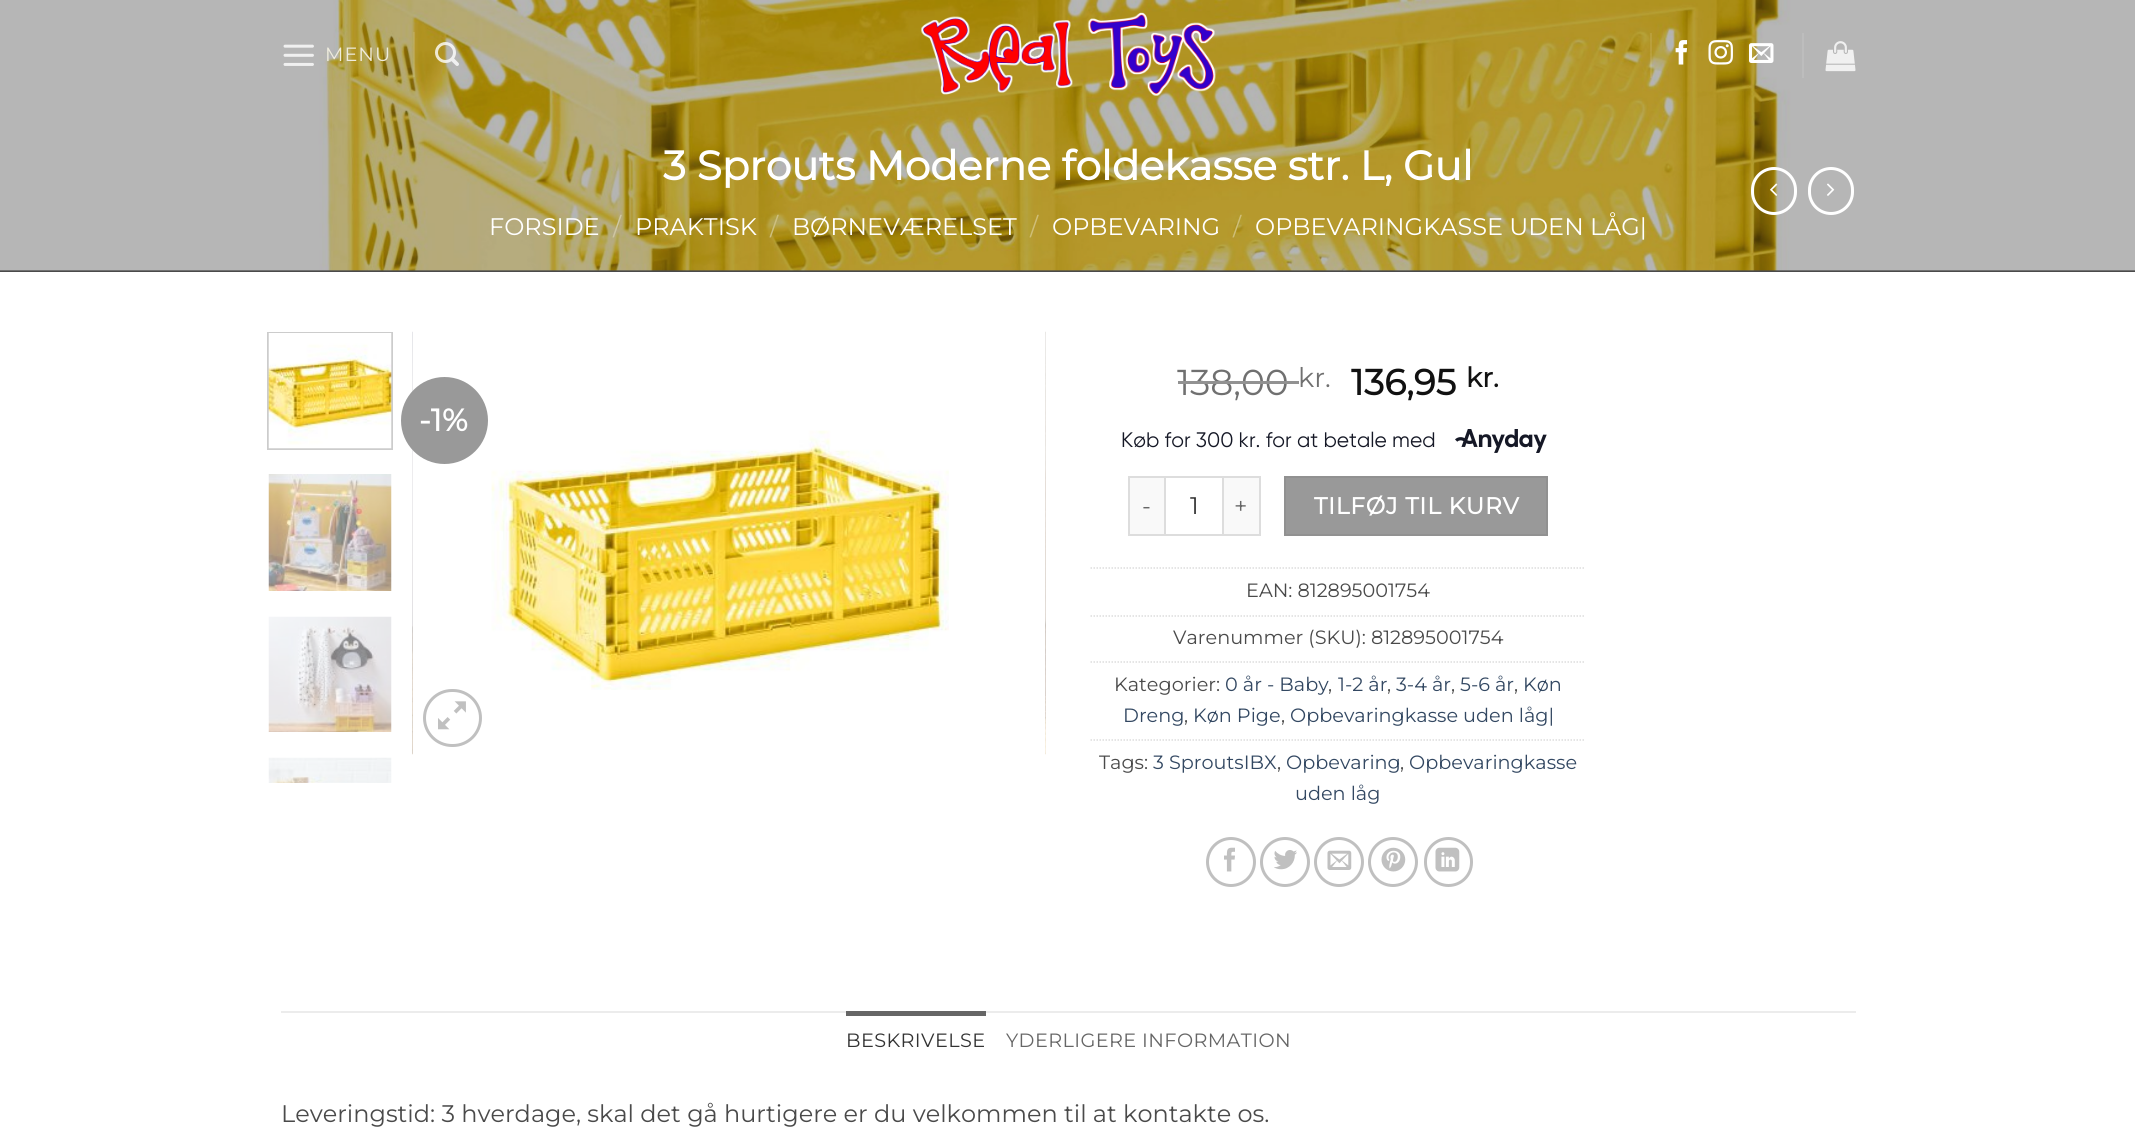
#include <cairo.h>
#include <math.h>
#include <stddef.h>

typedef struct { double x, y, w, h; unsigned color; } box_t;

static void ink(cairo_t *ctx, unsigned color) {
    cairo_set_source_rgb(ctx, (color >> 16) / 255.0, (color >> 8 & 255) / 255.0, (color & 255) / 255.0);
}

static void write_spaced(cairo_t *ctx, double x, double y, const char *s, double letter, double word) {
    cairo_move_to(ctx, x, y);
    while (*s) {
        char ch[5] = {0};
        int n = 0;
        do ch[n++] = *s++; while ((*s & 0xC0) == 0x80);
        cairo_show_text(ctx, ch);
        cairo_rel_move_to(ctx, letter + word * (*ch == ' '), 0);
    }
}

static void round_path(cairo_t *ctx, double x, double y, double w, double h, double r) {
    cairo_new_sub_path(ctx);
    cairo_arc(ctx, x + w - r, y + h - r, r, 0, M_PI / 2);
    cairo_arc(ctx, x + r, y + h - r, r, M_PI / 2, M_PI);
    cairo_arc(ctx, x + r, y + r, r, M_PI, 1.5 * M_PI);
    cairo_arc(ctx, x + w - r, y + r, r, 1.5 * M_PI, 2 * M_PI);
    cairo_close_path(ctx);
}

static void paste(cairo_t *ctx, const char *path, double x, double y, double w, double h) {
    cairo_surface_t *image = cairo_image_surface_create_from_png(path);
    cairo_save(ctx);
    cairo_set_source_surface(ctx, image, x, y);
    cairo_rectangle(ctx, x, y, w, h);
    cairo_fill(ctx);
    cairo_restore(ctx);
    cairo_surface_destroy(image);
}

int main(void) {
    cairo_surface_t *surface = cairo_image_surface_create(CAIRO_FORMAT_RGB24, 2135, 1140);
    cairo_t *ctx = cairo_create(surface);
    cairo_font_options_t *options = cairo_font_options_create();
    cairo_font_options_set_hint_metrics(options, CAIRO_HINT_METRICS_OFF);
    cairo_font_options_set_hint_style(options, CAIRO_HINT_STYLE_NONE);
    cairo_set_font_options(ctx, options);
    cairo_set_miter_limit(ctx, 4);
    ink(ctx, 0xFFFFFF);
    cairo_paint(ctx);
    ink(ctx, 0x4A4A4A);
    cairo_rectangle(ctx, 0, 270, 2135, 2);
    cairo_fill(ctx);
    paste(ctx, "media/8.png", 0, 0, 2135, 271);
    paste(ctx, "media/1.png", 283, 44, 31, 22);
    cairo_select_font_face(ctx, "Montserrat Thin", CAIRO_FONT_SLANT_NORMAL, CAIRO_FONT_WEIGHT_NORMAL);
    cairo_set_font_size(ctx, 19.25);
    ink(ctx, 0xEFECDE);
    write_spaced(ctx, 325, 61, "MENU", 1, 0);
    cairo_set_source_rgba(ctx, 1, 1, 1, 0.1);
    cairo_rectangle(ctx, 413, 32, 2, 45);
    cairo_fill(ctx);
    paste(ctx, "media/2.png", 435, 42, 24, 24);
    paste(ctx, "media/3.png", 920, 12, 296, 84);
    cairo_rectangle(ctx, 1650, 33, 2, 45);
    cairo_fill(ctx);
    paste(ctx, "media/4.png", 1675, 40, 13, 25);
    paste(ctx, "media/5.png", 1708, 40, 25, 25);
    paste(ctx, "media/6.png", 1749, 43, 25, 20);
    ink(ctx, 0xBDBDBD);
    cairo_rectangle(ctx, 1802, 33, 2, 45);
    cairo_fill(ctx);
    paste(ctx, "media/7.png", 1825, 41, 31, 31);
    cairo_select_font_face(ctx, "Montserrat", CAIRO_FONT_SLANT_NORMAL, CAIRO_FONT_WEIGHT_BOLD);
    cairo_set_font_size(ctx, 40.75);
    ink(ctx, 0xFFFFFF);
    cairo_move_to(ctx, 663, 180);
    cairo_show_text(ctx, "3 Sprouts Moderne foldekasse str. L, Gul");
    cairo_select_font_face(ctx, "Montserrat Thin", CAIRO_FONT_SLANT_NORMAL, CAIRO_FONT_WEIGHT_NORMAL);
    cairo_set_font_size(ctx, 24);
    cairo_move_to(ctx, 489, 235);
    cairo_show_text(ctx, "FORSIDE");
    ink(ctx, 0xCEC6A2);
    cairo_move_to(ctx, 613, 235);
    cairo_show_text(ctx, "/");
    ink(ctx, 0xFFFFFF);
    cairo_move_to(ctx, 635, 235);
    cairo_show_text(ctx, "PRAKTISK");
    ink(ctx, 0xCDBF80);
    cairo_move_to(ctx, 770, 235);
    cairo_show_text(ctx, "/");
    ink(ctx, 0xFFFFFF);
    cairo_move_to(ctx, 792, 235);
    cairo_show_text(ctx, "BØRNEVÆRELSET");
    ink(ctx, 0xCFBE78);
    cairo_move_to(ctx, 1030, 235);
    cairo_show_text(ctx, "/");
    ink(ctx, 0xFFFFFF);
    cairo_move_to(ctx, 1052, 235);
    cairo_show_text(ctx, "OPBEVARING");
    ink(ctx, 0xCFBE78);
    cairo_move_to(ctx, 1233, 235);
    cairo_show_text(ctx, "/");
    ink(ctx, 0xFFFFFF);
    cairo_move_to(ctx, 1255, 235);
    cairo_show_text(ctx, "OPBEVARINGKASSE UDEN LÅG|");
    round_path(ctx, 1752.5, 168.5, 43, 45, 21.5);
    cairo_set_line_width(ctx, 3);
    cairo_stroke(ctx);
    paste(ctx, "media/9.png", 1770, 183, 8, 13);
    round_path(ctx, 1809.5, 168.5, 43, 45, 21.5);
    cairo_stroke(ctx);
    paste(ctx, "media/10.png", 1827, 183, 8, 13);
    cairo_rectangle(ctx, 268, 333, 124, 116);
    ink(ctx, 0xCCCCCC);
    cairo_set_line_width(ctx, 2);
    cairo_stroke(ctx);
    paste(ctx, "media/11.png", 268, 333, 124, 116);
    paste(ctx, "media/12.png", 268, 474, 124, 117);
    paste(ctx, "media/13.png", 268, 616, 124, 116);
    paste(ctx, "media/14.png", 268, 757, 124, 26);
    paste(ctx, "media/15.png", 412, 331, 1, 424);
    paste(ctx, "media/16.png", 491, 430, 458, 260);
    paste(ctx, "media/17.png", 1045, 331, 1, 424);
    ink(ctx, 0x999999);
    cairo_arc(ctx, 444.5, 420.5, 43.5, 0, 2 * M_PI);
    cairo_fill(ctx);
    cairo_select_font_face(ctx, "Montserrat", CAIRO_FONT_SLANT_NORMAL, CAIRO_FONT_WEIGHT_BOLD);
    cairo_set_font_size(ctx, 31);
    ink(ctx, 0xFFFFFF);
    cairo_move_to(ctx, 419, 431);
    cairo_show_text(ctx, "-1%");
    round_path(ctx, 424.5, 690.5, 56, 55, 27.5);
    ink(ctx, 0xC0C0C0);
    cairo_set_line_width(ctx, 3);
    cairo_stroke(ctx);
    paste(ctx, "media/18.png", 438, 701, 28, 29);
    cairo_select_font_face(ctx, "Montserrat Thin", CAIRO_FONT_SLANT_NORMAL, CAIRO_FONT_WEIGHT_NORMAL);
    cairo_set_font_size(ctx, 36);
    ink(ctx, 0x707070);
    cairo_move_to(ctx, 1177, 395);
    cairo_show_text(ctx, "138,00");
    ink(ctx, 0x929292);
    cairo_rectangle(ctx, 1178, 381, 121, 3);
    cairo_fill(ctx);
    cairo_set_font_size(ctx, 27);
    ink(ctx, 0x707070);
    cairo_move_to(ctx, 1298, 387);
    cairo_show_text(ctx, "kr.");
    cairo_select_font_face(ctx, "Montserrat", CAIRO_FONT_SLANT_NORMAL, CAIRO_FONT_WEIGHT_BOLD);
    cairo_set_font_size(ctx, 36);
    ink(ctx, 0x111111);
    cairo_move_to(ctx, 1351, 395);
    cairo_show_text(ctx, "136,95");
    cairo_set_font_size(ctx, 27);
    cairo_move_to(ctx, 1466, 387);
    cairo_show_text(ctx, "kr.");
    cairo_select_font_face(ctx, "Gilroy", CAIRO_FONT_SLANT_NORMAL, CAIRO_FONT_WEIGHT_NORMAL);
    cairo_set_font_size(ctx, 21);
    ink(ctx, 0x151826);
    cairo_move_to(ctx, 1121, 447);
    cairo_show_text(ctx, "Køb for 300 kr. for at betale med");
    paste(ctx, "media/19.png", 1455, 429, 92, 24);
    {
        static const box_t items[] = {
            {1130, 478, 34, 56, 0xF9F9F9},
            {1128, 476, 36, 2, 0xDDDDDD},
            {1128, 534, 36, 2, 0xDDDDDD},
            {1128, 476, 2, 60, 0xDDDDDD},
        };
        for (size_t i = 0; i < sizeof items / sizeof *items; i++) {
            ink(ctx, items[i].color);
            cairo_rectangle(ctx, items[i].x, items[i].y, items[i].w, items[i].h);
            cairo_fill(ctx);
        }
    }
    cairo_select_font_face(ctx, "Montserrat Thin", CAIRO_FONT_SLANT_NORMAL, CAIRO_FONT_WEIGHT_NORMAL);
    cairo_set_font_size(ctx, 23.25);
    ink(ctx, 0x666666);
    write_spaced(ctx, 1142, 514, "-", 0.75, 0);
    cairo_rectangle(ctx, 1165, 477, 58, 58);
    ink(ctx, 0xDDDDDD);
    cairo_set_line_width(ctx, 2);
    cairo_stroke(ctx);
    cairo_set_font_size(ctx, 24);
    ink(ctx, 0x333333);
    cairo_move_to(ctx, 1190, 514);
    cairo_show_text(ctx, "1");
    {
        static const box_t items[] = {
            {1224, 478, 35, 56, 0xF9F9F9},
            {1224, 476, 36, 2, 0xDDDDDD},
            {1259, 476, 2, 60, 0xDDDDDD},
            {1224, 534, 36, 2, 0xDDDDDD},
        };
        for (size_t i = 0; i < sizeof items / sizeof *items; i++) {
            ink(ctx, items[i].color);
            cairo_rectangle(ctx, items[i].x, items[i].y, items[i].w, items[i].h);
            cairo_fill(ctx);
        }
    }
    cairo_set_font_size(ctx, 23.25);
    ink(ctx, 0x666666);
    write_spaced(ctx, 1234, 514, "+", 0.75, 0);
    ink(ctx, 0x999999);
    cairo_rectangle(ctx, 1285, 477, 262, 58);
    cairo_fill_preserve(ctx);
    ink(ctx, 0x919191);
    cairo_stroke(ctx);
    cairo_select_font_face(ctx, "Montserrat", CAIRO_FONT_SLANT_NORMAL, CAIRO_FONT_WEIGHT_BOLD);
    ink(ctx, 0xFFFFFF);
    write_spaced(ctx, 1314, 514, "TILFØJ TIL KURV", 0.75, 0);
    cairo_new_path(ctx);
    cairo_move_to(ctx, 1090.5, 568);
    cairo_line_to(ctx, 1585.5, 568);
    ink(ctx, 0xDDDDDD);
    cairo_set_line_width(ctx, 1.5);
    cairo_set_dash(ctx, (double[]){1.5, 1.5}, 2, 0);
    cairo_stroke(ctx);
    cairo_select_font_face(ctx, "Montserrat Thin", CAIRO_FONT_SLANT_NORMAL, CAIRO_FONT_WEIGHT_NORMAL);
    cairo_set_font_size(ctx, 19.25);
    ink(ctx, 0x4A4A4A);
    cairo_move_to(ctx, 1246, 597);
    cairo_show_text(ctx, "EAN: 812895001754");
    cairo_new_path(ctx);
    cairo_move_to(ctx, 1090.5, 616);
    cairo_line_to(ctx, 1585.5, 616);
    ink(ctx, 0xDDDDDD);
    cairo_stroke(ctx);
    ink(ctx, 0x4A4A4A);
    cairo_move_to(ctx, 1173, 644);
    cairo_show_text(ctx, "Varenummer (SKU): 812895001754");
    cairo_new_path(ctx);
    cairo_move_to(ctx, 1090.5, 662);
    cairo_line_to(ctx, 1585.5, 662);
    ink(ctx, 0xDDDDDD);
    cairo_stroke(ctx);
    ink(ctx, 0x4A4A4A);
    cairo_move_to(ctx, 1114, 691);
    cairo_show_text(ctx, "Kategorier:");
    ink(ctx, 0x334862);
    cairo_move_to(ctx, 1225, 691);
    cairo_show_text(ctx, "0 år - Baby");
    ink(ctx, 0x4A4A4A);
    cairo_move_to(ctx, 1328, 691);
    cairo_show_text(ctx, ",");
    ink(ctx, 0x334862);
    cairo_move_to(ctx, 1338, 691);
    cairo_show_text(ctx, "1-2 år");
    ink(ctx, 0x4A4A4A);
    cairo_move_to(ctx, 1387, 691);
    cairo_show_text(ctx, ",");
    ink(ctx, 0x334862);
    cairo_move_to(ctx, 1396, 691);
    cairo_show_text(ctx, "3-4 år");
    ink(ctx, 0x4A4A4A);
    cairo_move_to(ctx, 1451, 691);
    cairo_show_text(ctx, ",");
    ink(ctx, 0x334862);
    cairo_move_to(ctx, 1460, 691);
    cairo_show_text(ctx, "5-6 år");
    ink(ctx, 0x4A4A4A);
    cairo_move_to(ctx, 1514, 691);
    cairo_show_text(ctx, ",");
    ink(ctx, 0x334862);
    cairo_move_to(ctx, 1523, 691);
    cairo_show_text(ctx, "Køn");
    cairo_move_to(ctx, 1123, 722);
    cairo_show_text(ctx, "Dreng");
    ink(ctx, 0x4A4A4A);
    cairo_move_to(ctx, 1184, 722);
    cairo_show_text(ctx, ",");
    ink(ctx, 0x334862);
    cairo_move_to(ctx, 1193, 722);
    cairo_show_text(ctx, "Køn Pige");
    ink(ctx, 0x4A4A4A);
    cairo_move_to(ctx, 1281, 722);
    cairo_show_text(ctx, ",");
    ink(ctx, 0x334862);
    cairo_move_to(ctx, 1290, 722);
    cairo_show_text(ctx, "Opbevaringkasse uden låg|");
    cairo_new_path(ctx);
    cairo_move_to(ctx, 1090.5, 740);
    cairo_line_to(ctx, 1585.5, 740);
    ink(ctx, 0xDDDDDD);
    cairo_stroke(ctx);
    ink(ctx, 0x4A4A4A);
    cairo_move_to(ctx, 1099, 769);
    cairo_show_text(ctx, "Tags:");
    ink(ctx, 0x334862);
    cairo_move_to(ctx, 1153, 769);
    cairo_show_text(ctx, "3 SproutsIBX");
    ink(ctx, 0x4A4A4A);
    cairo_move_to(ctx, 1277, 769);
    cairo_show_text(ctx, ",");
    ink(ctx, 0x334862);
    cairo_move_to(ctx, 1286, 769);
    cairo_show_text(ctx, "Opbevaring");
    ink(ctx, 0x4A4A4A);
    cairo_move_to(ctx, 1400, 769);
    cairo_show_text(ctx, ",");
    ink(ctx, 0x334862);
    cairo_move_to(ctx, 1409, 769);
    cairo_show_text(ctx, "Opbevaringkasse");
    cairo_move_to(ctx, 1295, 800);
    cairo_show_text(ctx, "uden låg");
    cairo_new_path(ctx);
    cairo_arc(ctx, 1231, 862, 23.5, 0, 2 * M_PI);
    ink(ctx, 0xC0C0C0);
    cairo_set_line_width(ctx, 3);
    cairo_set_dash(ctx, NULL, 0, 0);
    cairo_stroke(ctx);
    paste(ctx, "media/20.png", 1224, 847, 11, 25);
    cairo_arc(ctx, 1285, 862, 23.5, 0, 2 * M_PI);
    cairo_stroke(ctx);
    paste(ctx, "media/21.png", 1274, 850, 23, 20);
    cairo_arc(ctx, 1339, 862, 23.5, 0, 2 * M_PI);
    cairo_stroke(ctx);
    paste(ctx, "media/22.png", 1327, 850, 25, 20);
    cairo_arc(ctx, 1393, 862, 23.5, 0, 2 * M_PI);
    cairo_stroke(ctx);
    paste(ctx, "media/23.png", 1381, 847, 25, 25);
    round_path(ctx, 1425.5, 838.5, 46, 47, 23);
    cairo_stroke(ctx);
    paste(ctx, "media/24.png", 1435, 847, 25, 25);
    ink(ctx, 0xECECEC);
    cairo_rectangle(ctx, 281, 1011, 1575, 2);
    cairo_fill(ctx);
    ink(ctx, 0x666666);
    cairo_rectangle(ctx, 846, 1011, 140, 5);
    cairo_fill(ctx);
    ink(ctx, 0x333333);
    write_spaced(ctx, 846, 1047, "BESKRIVELSE", 0.4, 0);
    ink(ctx, 0x666666);
    write_spaced(ctx, 1006, 1047, "YDERLIGERE INFORMATION", 0.4, 0);
    cairo_set_font_size(ctx, 24);
    ink(ctx, 0x4A4A4A);
    cairo_move_to(ctx, 281, 1122);
    cairo_show_text(ctx, "Leveringstid: 3 hverdage, skal det gå hurtigere er du velkommen til at kontakte os.");
    cairo_surface_write_to_png(surface, "image.png");
    cairo_font_options_destroy(options);
    cairo_destroy(ctx);
    cairo_surface_destroy(surface);
    return 0;
}
